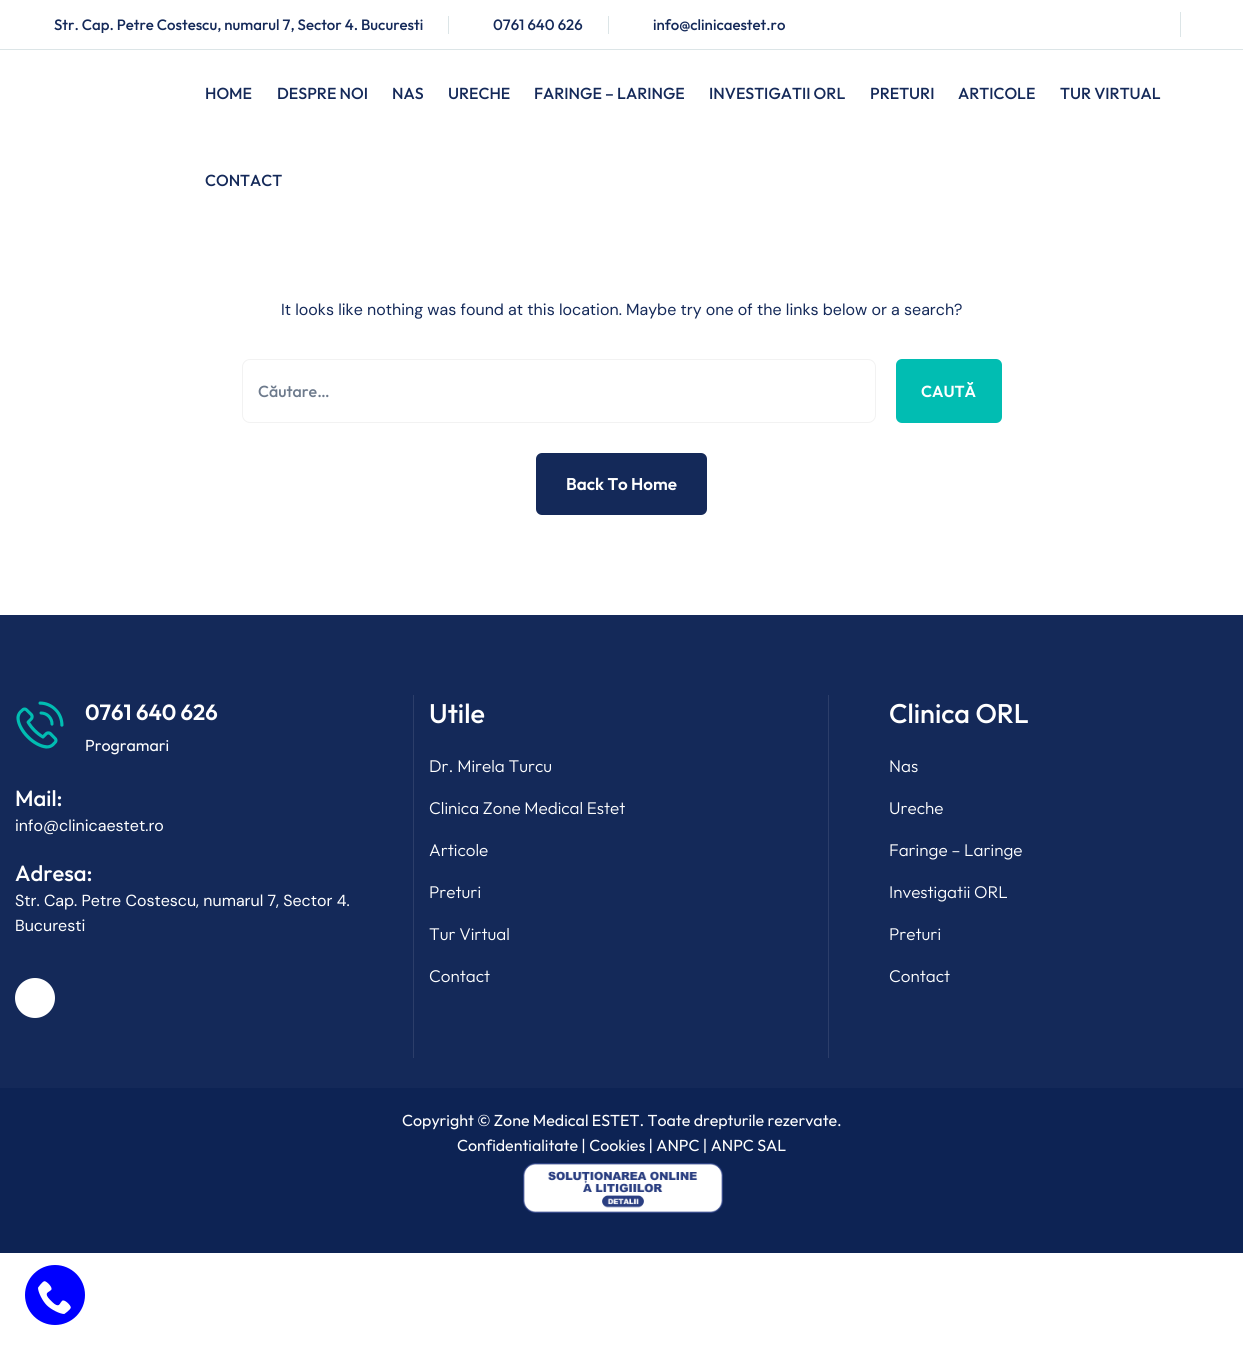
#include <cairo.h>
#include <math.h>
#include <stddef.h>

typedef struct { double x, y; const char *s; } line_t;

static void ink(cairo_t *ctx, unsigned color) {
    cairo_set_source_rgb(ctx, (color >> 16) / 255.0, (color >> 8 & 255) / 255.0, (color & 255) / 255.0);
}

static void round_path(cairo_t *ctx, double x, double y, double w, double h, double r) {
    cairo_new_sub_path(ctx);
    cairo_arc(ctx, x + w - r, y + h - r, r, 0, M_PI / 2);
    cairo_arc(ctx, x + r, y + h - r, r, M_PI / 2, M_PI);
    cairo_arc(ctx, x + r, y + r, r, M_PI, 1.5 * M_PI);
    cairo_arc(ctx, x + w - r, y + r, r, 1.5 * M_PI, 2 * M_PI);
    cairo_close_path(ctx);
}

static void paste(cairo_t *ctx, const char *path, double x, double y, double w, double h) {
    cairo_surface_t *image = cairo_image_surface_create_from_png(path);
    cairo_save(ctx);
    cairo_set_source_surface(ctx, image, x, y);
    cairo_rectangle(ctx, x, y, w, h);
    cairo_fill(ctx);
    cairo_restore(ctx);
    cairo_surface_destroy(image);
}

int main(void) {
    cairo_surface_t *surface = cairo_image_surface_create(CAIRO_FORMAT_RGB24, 1243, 1350);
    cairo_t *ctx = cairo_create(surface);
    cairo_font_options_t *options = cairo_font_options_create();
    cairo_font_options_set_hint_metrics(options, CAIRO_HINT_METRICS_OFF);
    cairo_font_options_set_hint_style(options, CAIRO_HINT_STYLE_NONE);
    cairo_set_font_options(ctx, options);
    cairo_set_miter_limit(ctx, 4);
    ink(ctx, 0xFFFFFF);
    cairo_paint(ctx);
    ink(ctx, 0xDCE5E7);
    cairo_rectangle(ctx, 0, 49, 1243, 1);
    cairo_fill(ctx);
    cairo_select_font_face(ctx, "Outfit Medium", CAIRO_FONT_SLANT_NORMAL, CAIRO_FONT_WEIGHT_NORMAL);
    cairo_set_font_size(ctx, 15);
    ink(ctx, 0x142959);
    cairo_move_to(ctx, 54, 30);
    cairo_show_text(ctx, "Str. Cap. Petre Costescu, numarul 7, Sector 4. Bucuresti");
    ink(ctx, 0xDCE5E7);
    cairo_rectangle(ctx, 448, 16, 1, 18);
    cairo_fill(ctx);
    ink(ctx, 0x142959);
    cairo_move_to(ctx, 493, 30);
    cairo_show_text(ctx, "0761 640 626");
    ink(ctx, 0xDCE5E7);
    cairo_rectangle(ctx, 608, 16, 1, 18);
    cairo_fill(ctx);
    ink(ctx, 0x142959);
    cairo_move_to(ctx, 653, 30);
    cairo_show_text(ctx, "info@clinicaestet.ro");
    ink(ctx, 0xDCE5E7);
    cairo_rectangle(ctx, 1180, 12, 1, 25);
    cairo_fill(ctx);
    cairo_set_font_size(ctx, 16);
    ink(ctx, 0x142959);
    {
        static const line_t items[] = {
            {205, 99, "HOME"},
            {277, 99, "DESPRE NOI"},
            {392, 99, "NAS"},
            {448, 99, "URECHE"},
            {534, 99, "FARINGE – LARINGE"},
            {709, 99, "INVESTIGATII ORL"},
            {870, 99, "PRETURI"},
            {958, 99, "ARTICOLE"},
            {1060, 99, "TUR VIRTUAL"},
            {205, 186, "CONTACT"},
        };
        for (size_t i = 0; i < sizeof items / sizeof *items; i++) {
            cairo_move_to(ctx, items[i].x, items[i].y);
            cairo_show_text(ctx, items[i].s);
        }
    }
    cairo_select_font_face(ctx, "DM Sans", CAIRO_FONT_SLANT_NORMAL, CAIRO_FONT_WEIGHT_NORMAL);
    cairo_move_to(ctx, 281, 315);
    cairo_show_text(ctx, "It looks like nothing was found at this location. Maybe try one of the links below or a search?");
    round_path(ctx, 242.5, 359.5, 633, 63, 7.5);
    ink(ctx, 0xF2F2F2);
    cairo_set_line_width(ctx, 1);
    cairo_stroke(ctx);
    cairo_select_font_face(ctx, "Outfit Medium", CAIRO_FONT_SLANT_NORMAL, CAIRO_FONT_WEIGHT_NORMAL);
    ink(ctx, 0x6D7A8C);
    cairo_move_to(ctx, 258, 397);
    cairo_show_text(ctx, "Căutare…");
    ink(ctx, 0x01BDB2);
    round_path(ctx, 896, 359, 106, 64, 6);
    cairo_fill(ctx);
    cairo_select_font_face(ctx, "Outfit SemiBold", CAIRO_FONT_SLANT_NORMAL, CAIRO_FONT_WEIGHT_NORMAL);
    ink(ctx, 0xFFFFFF);
    cairo_move_to(ctx, 921, 397);
    cairo_show_text(ctx, "CAUTĂ");
    ink(ctx, 0x142959);
    round_path(ctx, 536, 453, 171, 62, 6);
    cairo_fill(ctx);
    cairo_set_font_size(ctx, 17);
    ink(ctx, 0xFFFFFF);
    cairo_move_to(ctx, 566, 490);
    cairo_show_text(ctx, "Back To Home");
    ink(ctx, 0x142959);
    cairo_rectangle(ctx, 0, 615, 1243, 473);
    cairo_fill(ctx);
    ink(ctx, 0x2C3E6A);
    cairo_rectangle(ctx, 413, 695, 1, 363);
    cairo_fill(ctx);
    paste(ctx, "media/1.png", 16, 701, 48, 48);
    cairo_set_font_size(ctx, 22);
    ink(ctx, 0xFFFFFF);
    cairo_move_to(ctx, 85, 720);
    cairo_show_text(ctx, "0761 640 626");
    cairo_select_font_face(ctx, "Outfit", CAIRO_FONT_SLANT_NORMAL, CAIRO_FONT_WEIGHT_NORMAL);
    cairo_set_font_size(ctx, 16);
    cairo_move_to(ctx, 85, 751);
    cairo_show_text(ctx, "Programari");
    cairo_select_font_face(ctx, "Outfit Medium", CAIRO_FONT_SLANT_NORMAL, CAIRO_FONT_WEIGHT_NORMAL);
    cairo_set_font_size(ctx, 22);
    cairo_move_to(ctx, 15, 806);
    cairo_show_text(ctx, "Mail:");
    cairo_select_font_face(ctx, "DM Sans", CAIRO_FONT_SLANT_NORMAL, CAIRO_FONT_WEIGHT_NORMAL);
    cairo_set_font_size(ctx, 16);
    cairo_move_to(ctx, 15, 831);
    cairo_show_text(ctx, "info@clinicaestet.ro");
    cairo_select_font_face(ctx, "Outfit Medium", CAIRO_FONT_SLANT_NORMAL, CAIRO_FONT_WEIGHT_NORMAL);
    cairo_set_font_size(ctx, 22);
    cairo_move_to(ctx, 15, 881);
    cairo_show_text(ctx, "Adresa:");
    cairo_select_font_face(ctx, "DM Sans", CAIRO_FONT_SLANT_NORMAL, CAIRO_FONT_WEIGHT_NORMAL);
    cairo_set_font_size(ctx, 16);
    cairo_move_to(ctx, 15, 906);
    cairo_show_text(ctx, "Str. Cap. Petre Costescu, numarul 7, Sector 4.");
    cairo_move_to(ctx, 15, 931);
    cairo_show_text(ctx, "Bucuresti");
    cairo_new_path(ctx);
    cairo_arc(ctx, 35, 998, 20, 0, 2 * M_PI);
    cairo_fill(ctx);
    ink(ctx, 0x2C3E6A);
    cairo_rectangle(ctx, 828, 695, 1, 363);
    cairo_fill(ctx);
    cairo_select_font_face(ctx, "Outfit Medium", CAIRO_FONT_SLANT_NORMAL, CAIRO_FONT_WEIGHT_NORMAL);
    cairo_set_font_size(ctx, 27);
    ink(ctx, 0xFFFFFF);
    cairo_move_to(ctx, 429, 723);
    cairo_show_text(ctx, "Utile");
    cairo_select_font_face(ctx, "Outfit Light", CAIRO_FONT_SLANT_NORMAL, CAIRO_FONT_WEIGHT_NORMAL);
    cairo_set_font_size(ctx, 17);
    {
        static const line_t items[] = {
            {429, 772, "Dr. Mirela Turcu"},
            {429, 814, "Clinica Zone Medical Estet"},
            {429, 856, "Articole"},
            {429, 898, "Preturi"},
            {429, 940, "Tur Virtual"},
            {429, 982, "Contact"},
        };
        for (size_t i = 0; i < sizeof items / sizeof *items; i++) {
            cairo_move_to(ctx, items[i].x, items[i].y);
            cairo_show_text(ctx, items[i].s);
        }
    }
    cairo_select_font_face(ctx, "Outfit Medium", CAIRO_FONT_SLANT_NORMAL, CAIRO_FONT_WEIGHT_NORMAL);
    cairo_set_font_size(ctx, 27);
    cairo_move_to(ctx, 889, 723);
    cairo_show_text(ctx, "Clinica ORL");
    cairo_select_font_face(ctx, "Outfit Light", CAIRO_FONT_SLANT_NORMAL, CAIRO_FONT_WEIGHT_NORMAL);
    cairo_set_font_size(ctx, 17);
    {
        static const line_t items[] = {
            {889, 772, "Nas"},
            {889, 814, "Ureche"},
            {889, 856, "Faringe – Laringe"},
            {889, 898, "Investigatii ORL"},
            {889, 940, "Preturi"},
            {889, 982, "Contact"},
        };
        for (size_t i = 0; i < sizeof items / sizeof *items; i++) {
            cairo_move_to(ctx, items[i].x, items[i].y);
            cairo_show_text(ctx, items[i].s);
        }
    }
    ink(ctx, 0x0D2354);
    cairo_rectangle(ctx, 0, 1088, 1243, 165);
    cairo_fill(ctx);
    cairo_select_font_face(ctx, "Outfit", CAIRO_FONT_SLANT_NORMAL, CAIRO_FONT_WEIGHT_NORMAL);
    cairo_set_font_size(ctx, 16);
    ink(ctx, 0xFFFFFF);
    cairo_move_to(ctx, 402, 1126);
    cairo_show_text(ctx, "Copyright © Zone Medical ESTET. Toate drepturile rezervate.");
    cairo_move_to(ctx, 457, 1151);
    cairo_show_text(ctx, "Confidentialitate | Cookies | ANPC | ANPC SAL");
    paste(ctx, "media/2.png", 523, 1163, 200, 50);
    ink(ctx, 0x0000FF);
    cairo_arc(ctx, 55, 1295, 29, 0, 2 * M_PI);
    cairo_fill_preserve(ctx);
    cairo_set_line_width(ctx, 2);
    cairo_stroke(ctx);
    paste(ctx, "media/3.png", 38, 1281, 33, 33);
    cairo_surface_write_to_png(surface, "image.png");
    cairo_font_options_destroy(options);
    cairo_destroy(ctx);
    cairo_surface_destroy(surface);
    return 0;
}
